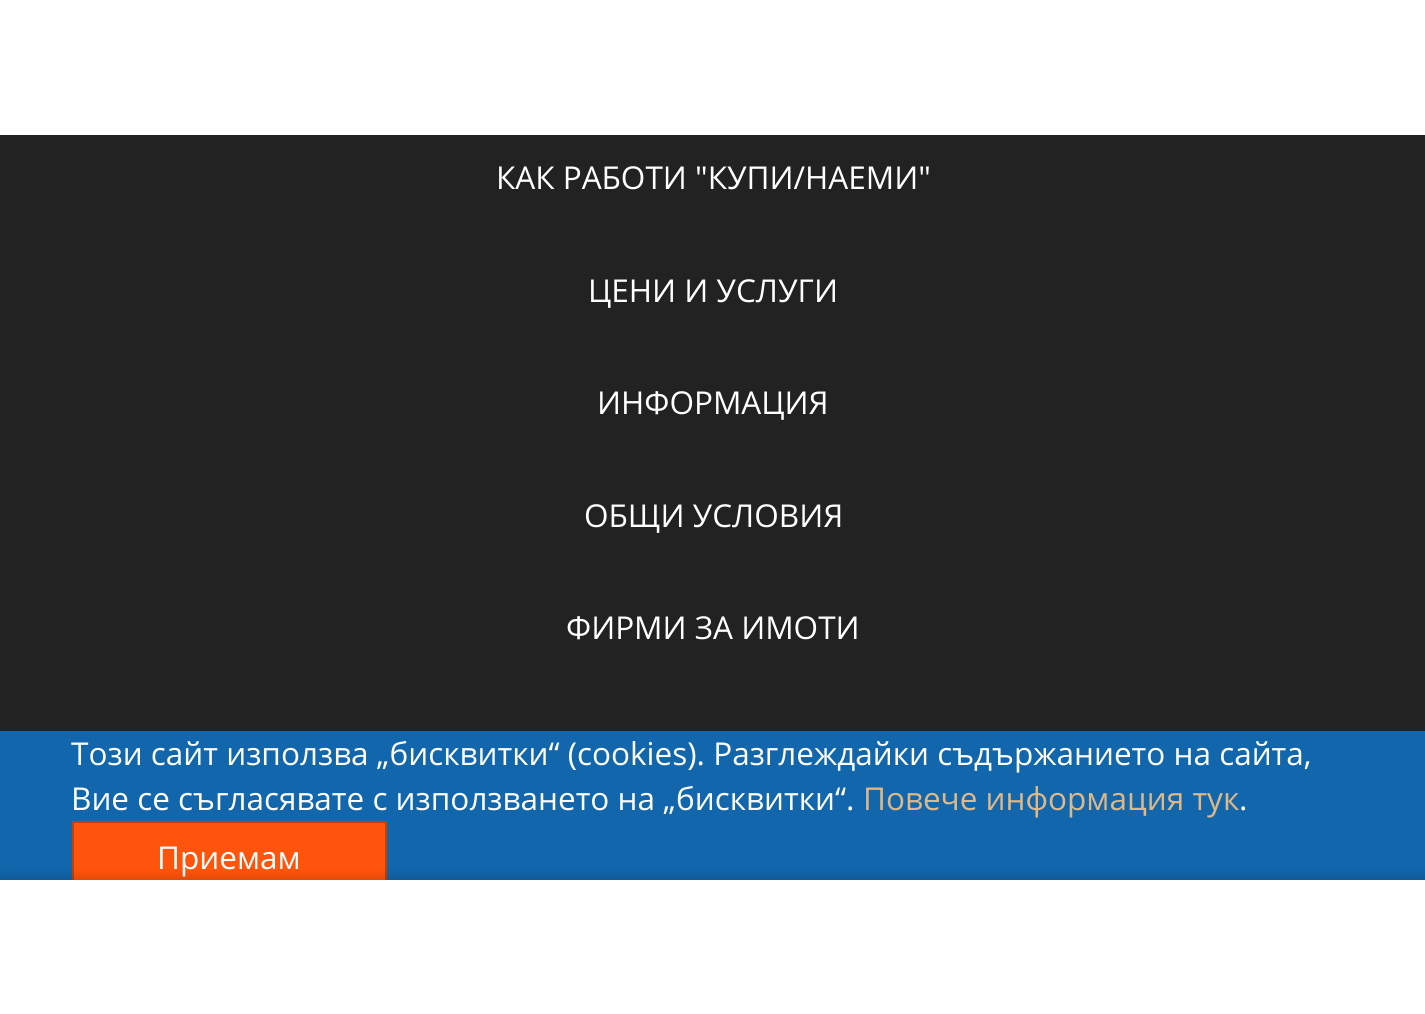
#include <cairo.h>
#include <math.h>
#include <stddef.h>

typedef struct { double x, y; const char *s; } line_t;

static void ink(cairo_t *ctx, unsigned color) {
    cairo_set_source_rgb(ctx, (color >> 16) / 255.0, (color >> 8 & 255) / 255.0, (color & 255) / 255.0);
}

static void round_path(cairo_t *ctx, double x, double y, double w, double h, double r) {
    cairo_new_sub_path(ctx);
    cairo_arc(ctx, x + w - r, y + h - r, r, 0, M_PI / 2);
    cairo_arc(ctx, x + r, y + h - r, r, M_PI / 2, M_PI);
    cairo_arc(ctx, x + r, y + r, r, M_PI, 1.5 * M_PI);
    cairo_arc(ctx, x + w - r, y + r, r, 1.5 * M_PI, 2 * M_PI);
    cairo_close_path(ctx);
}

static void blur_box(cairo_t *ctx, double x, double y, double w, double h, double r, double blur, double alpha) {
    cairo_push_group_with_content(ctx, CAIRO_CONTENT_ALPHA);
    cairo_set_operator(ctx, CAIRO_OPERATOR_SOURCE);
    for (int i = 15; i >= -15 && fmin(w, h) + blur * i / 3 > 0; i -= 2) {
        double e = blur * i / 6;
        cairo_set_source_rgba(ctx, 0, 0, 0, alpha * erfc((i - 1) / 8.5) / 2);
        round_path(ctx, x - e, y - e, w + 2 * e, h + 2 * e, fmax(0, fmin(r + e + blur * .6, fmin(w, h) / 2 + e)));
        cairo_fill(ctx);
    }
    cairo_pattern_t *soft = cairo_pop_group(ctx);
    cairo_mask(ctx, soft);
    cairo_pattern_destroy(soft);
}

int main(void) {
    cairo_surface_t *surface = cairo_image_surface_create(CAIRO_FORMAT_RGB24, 1425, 1014);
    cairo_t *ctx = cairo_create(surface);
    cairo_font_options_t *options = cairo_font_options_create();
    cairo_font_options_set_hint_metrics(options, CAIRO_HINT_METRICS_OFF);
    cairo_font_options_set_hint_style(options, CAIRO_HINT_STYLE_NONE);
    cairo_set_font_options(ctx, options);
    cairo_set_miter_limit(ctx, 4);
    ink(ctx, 0x222222);
    cairo_paint(ctx);
    ink(ctx, 0xFFFFFF);
    cairo_rectangle(ctx, 0, 0, 1425, 135);
    cairo_fill(ctx);
    cairo_select_font_face(ctx, "Open Sans", CAIRO_FONT_SLANT_NORMAL, CAIRO_FONT_WEIGHT_NORMAL);
    cairo_set_font_size(ctx, 31.5);
    {
        static const line_t items[] = {
            {496, 189, "КАК РАБОТИ \"КУПИ/НАЕМИ\""},
            {588, 302, "ЦЕНИ И УСЛУГИ"},
            {597, 414, "ИНФОРМАЦИЯ"},
            {584, 527, "ОБЩИ УСЛОВИЯ"},
            {566, 639, "ФИРМИ ЗА ИМОТИ"},
        };
        for (size_t i = 0; i < sizeof items / sizeof *items; i++) {
            cairo_move_to(ctx, items[i].x, items[i].y);
            cairo_show_text(ctx, items[i].s);
        }
    }
    ink(ctx, 0x1266AB);
    cairo_rectangle(ctx, 0, 731, 1425, 149);
    cairo_fill(ctx);
    ink(ctx, 0xFFFFFF);
    cairo_move_to(ctx, 71, 765);
    cairo_show_text(ctx, "Този сайт използва „бисквитки“ (cookies). Разглеждайки съдържанието на сайта,");
    cairo_move_to(ctx, 71, 810);
    cairo_show_text(ctx, "Вие се съгласявате с използването на „бисквитки“.");
    ink(ctx, 0xDEB887);
    cairo_move_to(ctx, 863, 810);
    cairo_show_text(ctx, "Повече информация тук");
    ink(ctx, 0xFFFFFF);
    cairo_move_to(ctx, 1239, 810);
    cairo_show_text(ctx, ".");
    ink(ctx, 0xFF540B);
    cairo_rectangle(ctx, 74, 823, 311, 57);
    cairo_fill(ctx);
    cairo_rectangle(ctx, 73, 822, 313, 70);
    ink(ctx, 0xCA3C00);
    cairo_stroke(ctx);
    ink(ctx, 0xFFFFFF);
    cairo_move_to(ctx, 157, 869);
    cairo_show_text(ctx, "Приемам");
    ink(ctx, 0x000000);
    blur_box(ctx, 0, 875, 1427, 135, 0, 3.5, 0.12);
    ink(ctx, 0xFFFFFF);
    cairo_rectangle(ctx, 0, 880, 1425, 134);
    cairo_fill(ctx);
    cairo_surface_write_to_png(surface, "image.png");
    cairo_font_options_destroy(options);
    cairo_destroy(ctx);
    cairo_surface_destroy(surface);
    return 0;
}
